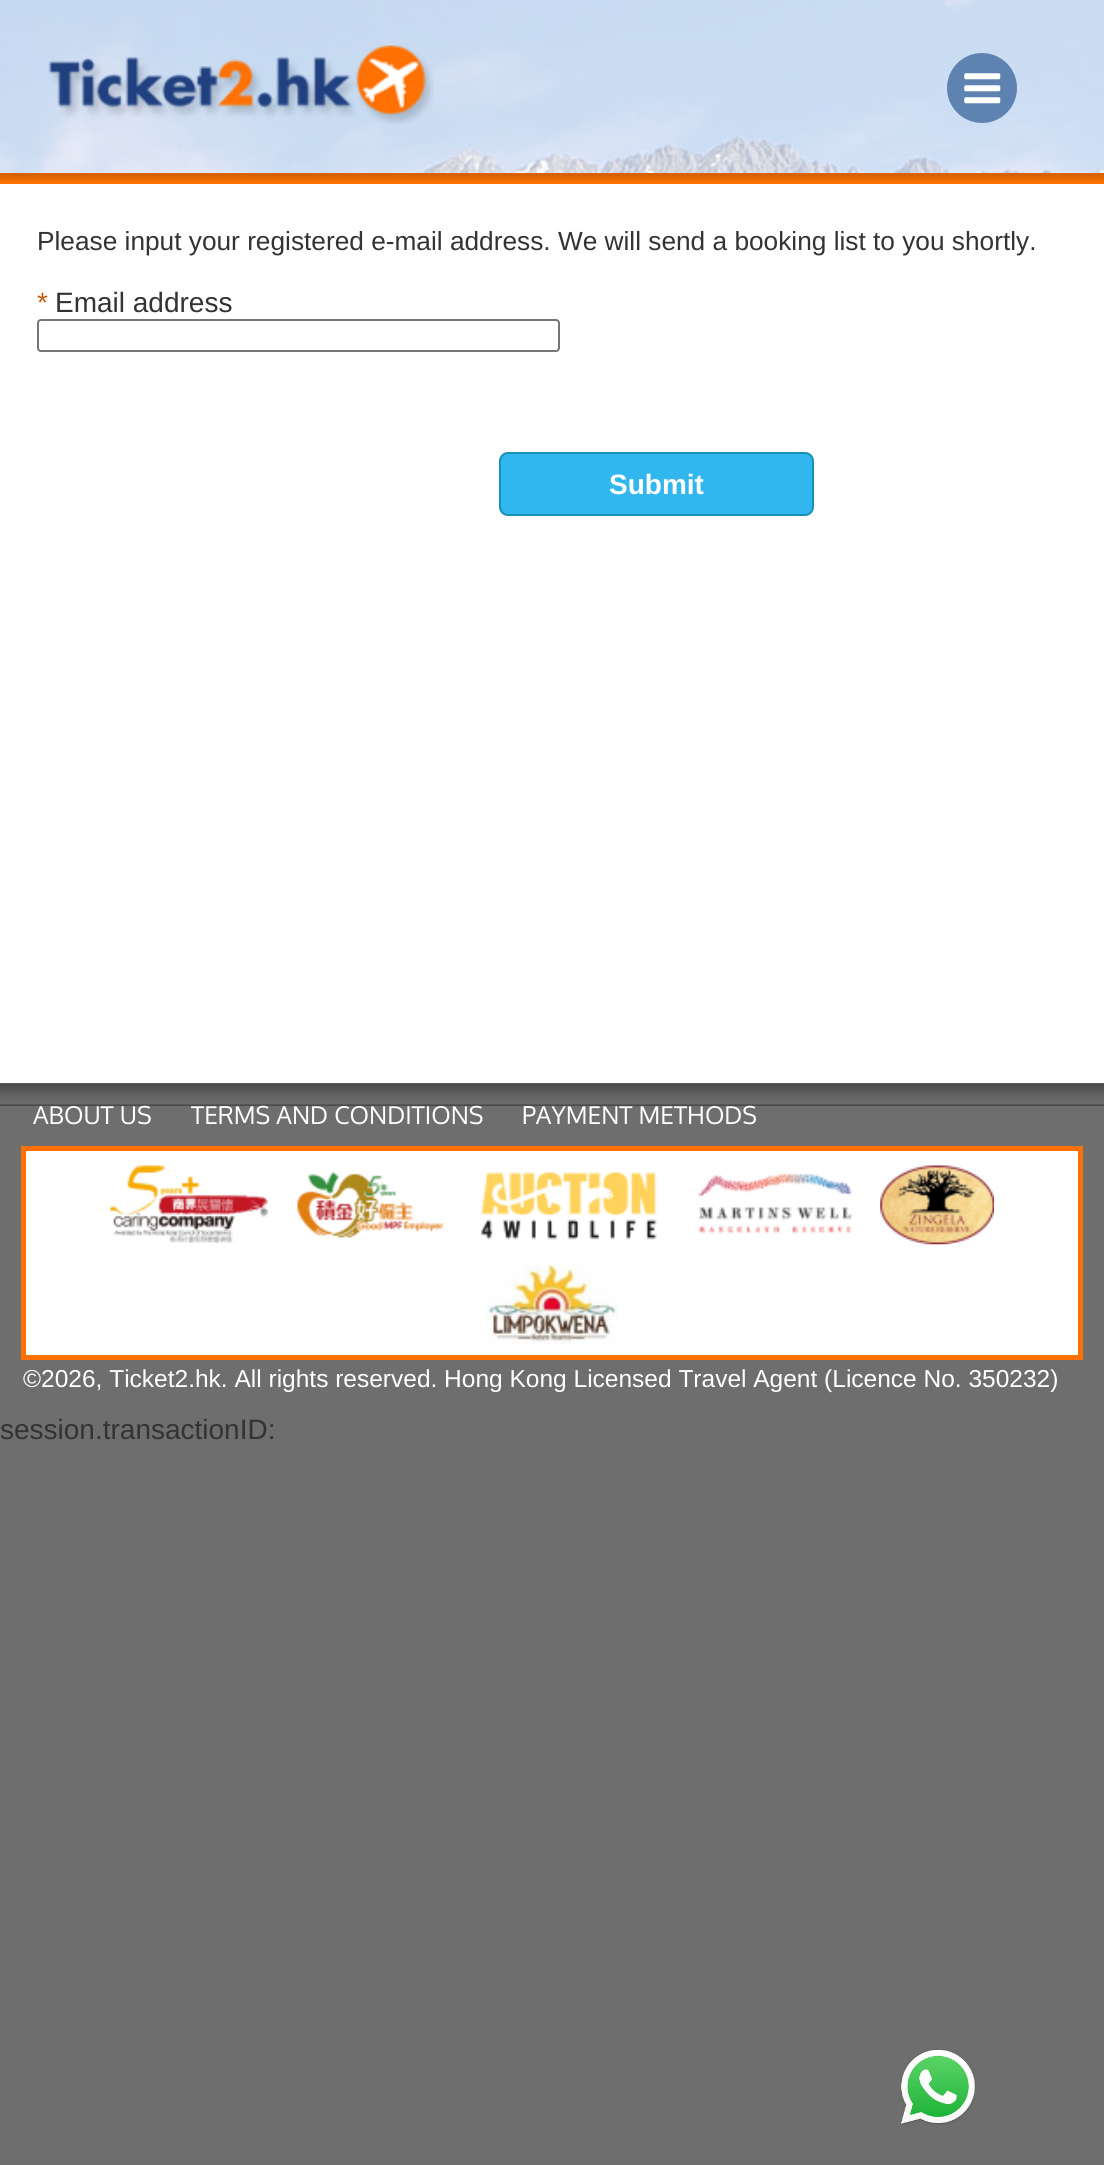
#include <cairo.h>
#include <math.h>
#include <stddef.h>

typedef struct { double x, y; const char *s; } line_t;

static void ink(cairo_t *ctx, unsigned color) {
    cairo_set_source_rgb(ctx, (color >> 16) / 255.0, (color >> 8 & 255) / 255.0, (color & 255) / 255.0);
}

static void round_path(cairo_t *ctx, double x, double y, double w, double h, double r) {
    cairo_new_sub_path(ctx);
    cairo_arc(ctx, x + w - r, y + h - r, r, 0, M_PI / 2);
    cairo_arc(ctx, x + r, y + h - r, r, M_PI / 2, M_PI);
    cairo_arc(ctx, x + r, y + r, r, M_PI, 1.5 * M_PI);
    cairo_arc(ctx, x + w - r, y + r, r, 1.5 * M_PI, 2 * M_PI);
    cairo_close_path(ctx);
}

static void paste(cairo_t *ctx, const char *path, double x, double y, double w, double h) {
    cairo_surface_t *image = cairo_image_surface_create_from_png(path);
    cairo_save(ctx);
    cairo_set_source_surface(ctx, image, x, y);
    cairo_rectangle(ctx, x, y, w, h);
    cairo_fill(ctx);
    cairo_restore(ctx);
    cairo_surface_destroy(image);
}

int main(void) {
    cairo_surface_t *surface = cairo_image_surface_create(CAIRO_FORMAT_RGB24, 1104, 2165);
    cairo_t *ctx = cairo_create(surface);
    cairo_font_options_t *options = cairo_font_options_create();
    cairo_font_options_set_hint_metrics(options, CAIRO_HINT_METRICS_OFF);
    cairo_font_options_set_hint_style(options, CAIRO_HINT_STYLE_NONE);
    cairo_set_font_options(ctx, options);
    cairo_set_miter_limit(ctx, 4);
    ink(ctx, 0x6E6E6E);
    cairo_paint(ctx);
    paste(ctx, "media/1.png", 0, 0, 1104, 173);
    cairo_set_source_rgba(ctx, 1, 1, 1, 0.7);
    cairo_rectangle(ctx, 0, 0, 1104, 173);
    cairo_fill(ctx);
    ink(ctx, 0xFF7201);
    cairo_rectangle(ctx, 0, 173, 1104, 11);
    cairo_fill(ctx);
    paste(ctx, "media/2.png", 48, 45, 386, 80);
    ink(ctx, 0x5E83B0);
    cairo_arc(ctx, 982, 88, 35, 0, 2 * M_PI);
    cairo_fill(ctx);
    paste(ctx, "media/3.png", 964, 73, 37, 31);
    paste(ctx, "media/4.png", 0, 173, 1104, 10);
    ink(ctx, 0xFFFFFF);
    cairo_rectangle(ctx, 0, 184, 1104, 899);
    cairo_fill(ctx);
    cairo_select_font_face(ctx, "Liberation Sans", CAIRO_FONT_SLANT_NORMAL, CAIRO_FONT_WEIGHT_NORMAL);
    cairo_set_font_size(ctx, 26.25);
    ink(ctx, 0x333333);
    cairo_move_to(ctx, 37, 250);
    cairo_show_text(ctx, "Please input your registered e-mail address. We will send a booking list to you shortly.");
    cairo_set_font_size(ctx, 28);
    ink(ctx, 0xC55A11);
    cairo_move_to(ctx, 37, 312);
    cairo_show_text(ctx, "*");
    ink(ctx, 0x333333);
    cairo_move_to(ctx, 55, 312);
    cairo_show_text(ctx, "Email address");
    round_path(ctx, 38, 320, 521, 31, 3);
    ink(ctx, 0x767676);
    cairo_stroke(ctx);
    ink(ctx, 0x31B6ED);
    round_path(ctx, 500, 453, 313, 62, 8);
    cairo_fill_preserve(ctx);
    ink(ctx, 0x1891B7);
    cairo_stroke(ctx);
    cairo_select_font_face(ctx, "Liberation Sans", CAIRO_FONT_SLANT_NORMAL, CAIRO_FONT_WEIGHT_BOLD);
    ink(ctx, 0xFFFFFF);
    cairo_move_to(ctx, 609, 494);
    cairo_show_text(ctx, "Submit");
    paste(ctx, "media/5.png", 0, 1083, 1104, 23);
    cairo_select_font_face(ctx, "Oxygen", CAIRO_FONT_SLANT_NORMAL, CAIRO_FONT_WEIGHT_NORMAL);
    cairo_set_font_size(ctx, 24.5);
    {
        static const line_t items[] = {
            {33, 1124, "ABOUT US"},
            {191, 1124, "TERMS AND CONDITIONS"},
            {522, 1124, "PAYMENT METHODS"},
        };
        for (size_t i = 0; i < sizeof items / sizeof *items; i++) {
            cairo_move_to(ctx, items[i].x, items[i].y);
            cairo_show_text(ctx, items[i].s);
        }
    }
    cairo_rectangle(ctx, 23.5, 1148.5, 1057, 209);
    cairo_fill_preserve(ctx);
    ink(ctx, 0xFF7102);
    cairo_set_line_width(ctx, 5);
    cairo_stroke(ctx);
    paste(ctx, "media/6.png", 110, 1165, 158, 78);
    paste(ctx, "media/7.png", 297, 1172, 147, 67);
    paste(ctx, "media/8.png", 480, 1172, 177, 68);
    paste(ctx, "media/9.png", 698, 1172, 155, 62);
    paste(ctx, "media/10.png", 880, 1165, 114, 80);
    paste(ctx, "media/11.png", 486, 1265, 132, 79);
    cairo_select_font_face(ctx, "Liberation Sans", CAIRO_FONT_SLANT_NORMAL, CAIRO_FONT_WEIGHT_NORMAL);
    ink(ctx, 0xFFFFFF);
    cairo_move_to(ctx, 23, 1387);
    cairo_show_text(ctx, "©2026, Ticket2.hk. All rights reserved. Hong Kong Licensed Travel Agent (Licence No. 350232)");
    cairo_set_font_size(ctx, 28);
    ink(ctx, 0x333333);
    cairo_move_to(ctx, 0, 1439);
    cairo_show_text(ctx, "session.transactionID:");
    paste(ctx, "media/12.png", 900, 2049, 76, 76);
    cairo_surface_write_to_png(surface, "image.png");
    cairo_font_options_destroy(options);
    cairo_destroy(ctx);
    cairo_surface_destroy(surface);
    return 0;
}
